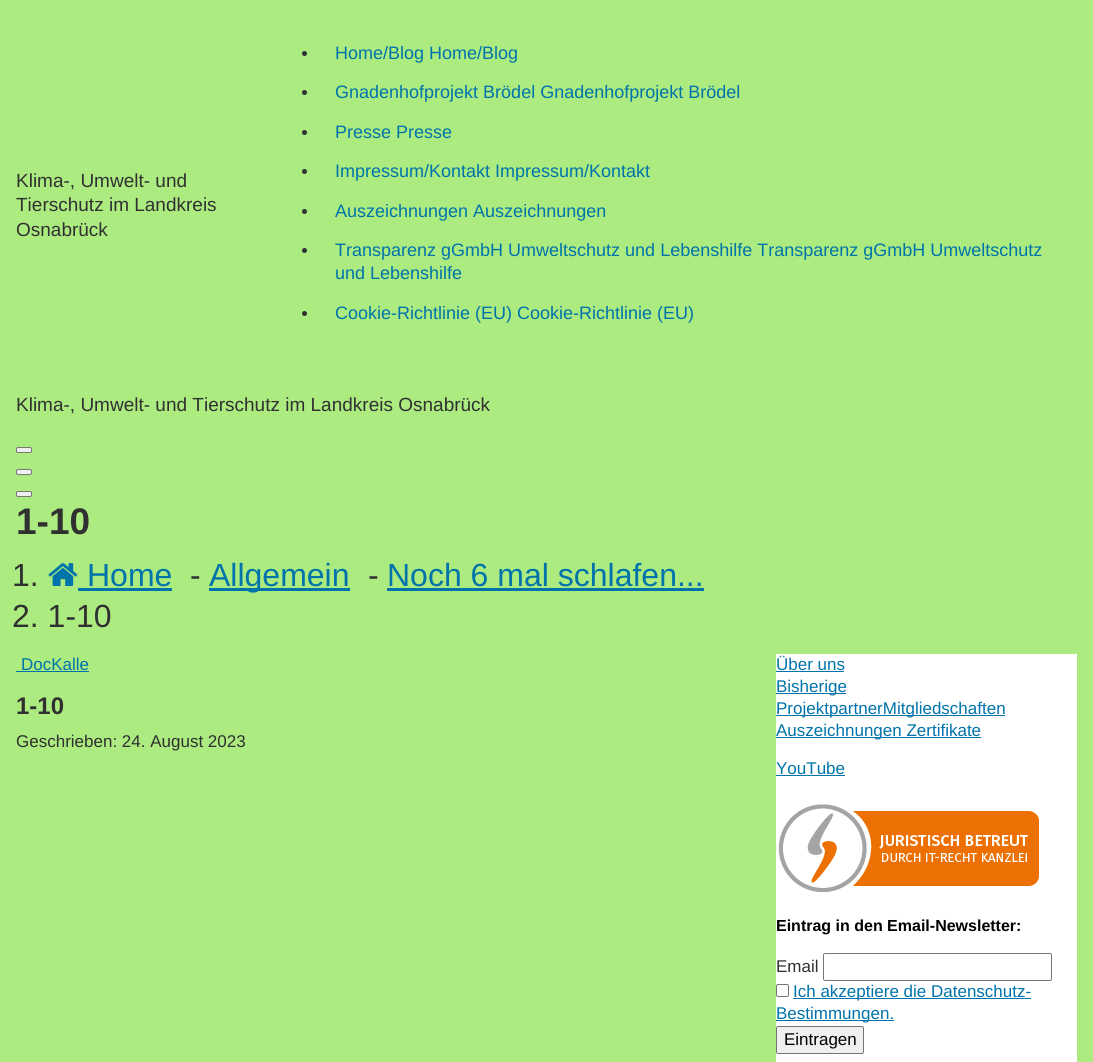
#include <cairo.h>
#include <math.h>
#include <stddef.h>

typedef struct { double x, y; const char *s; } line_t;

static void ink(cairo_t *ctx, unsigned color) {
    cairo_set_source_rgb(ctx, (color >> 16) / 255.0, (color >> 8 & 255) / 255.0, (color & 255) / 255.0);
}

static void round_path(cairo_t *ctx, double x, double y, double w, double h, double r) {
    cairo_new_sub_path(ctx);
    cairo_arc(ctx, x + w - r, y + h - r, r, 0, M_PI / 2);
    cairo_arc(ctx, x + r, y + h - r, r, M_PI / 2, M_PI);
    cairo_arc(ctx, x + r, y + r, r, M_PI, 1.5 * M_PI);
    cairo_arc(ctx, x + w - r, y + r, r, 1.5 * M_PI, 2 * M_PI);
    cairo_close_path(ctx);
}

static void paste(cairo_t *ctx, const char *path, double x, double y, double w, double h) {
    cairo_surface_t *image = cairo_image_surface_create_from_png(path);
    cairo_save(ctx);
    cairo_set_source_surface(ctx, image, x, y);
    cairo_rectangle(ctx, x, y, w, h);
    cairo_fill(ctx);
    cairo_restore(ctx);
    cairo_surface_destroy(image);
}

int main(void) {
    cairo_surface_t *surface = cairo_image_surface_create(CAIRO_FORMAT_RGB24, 1093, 1062);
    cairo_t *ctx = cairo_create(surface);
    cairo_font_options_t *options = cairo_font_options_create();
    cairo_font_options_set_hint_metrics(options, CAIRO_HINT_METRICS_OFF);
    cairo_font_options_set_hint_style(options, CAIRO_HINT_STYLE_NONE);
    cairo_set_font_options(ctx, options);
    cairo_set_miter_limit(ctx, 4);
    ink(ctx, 0xACEB80);
    cairo_paint(ctx);
    cairo_select_font_face(ctx, "Liberation Sans", CAIRO_FONT_SLANT_NORMAL, CAIRO_FONT_WEIGHT_NORMAL);
    cairo_set_font_size(ctx, 19);
    ink(ctx, 0x303030);
    {
        static const line_t items[] = {
            {16, 187, "Klima-, Umwelt- und"},
            {16, 211, "Tierschutz im Landkreis"},
            {16, 236, "Osnabrück"},
        };
        for (size_t i = 0; i < sizeof items / sizeof *items; i++) {
            cairo_move_to(ctx, items[i].x, items[i].y);
            cairo_show_text(ctx, items[i].s);
        }
    }
    cairo_new_path(ctx);
    cairo_arc(ctx, 304.5, 53.5, 2.5, 0, 2 * M_PI);
    cairo_fill(ctx);
    cairo_set_font_size(ctx, 18);
    ink(ctx, 0x0073AA);
    cairo_move_to(ctx, 335, 59);
    cairo_show_text(ctx, "Home/Blog Home/Blog");
    ink(ctx, 0x303030);
    cairo_new_path(ctx);
    cairo_arc(ctx, 304.5, 92.5, 2.5, 0, 2 * M_PI);
    cairo_fill(ctx);
    ink(ctx, 0x0073AA);
    cairo_move_to(ctx, 335, 98);
    cairo_show_text(ctx, "Gnadenhofprojekt Brödel Gnadenhofprojekt Brödel");
    ink(ctx, 0x303030);
    cairo_new_path(ctx);
    cairo_arc(ctx, 304.5, 132.5, 2.5, 0, 2 * M_PI);
    cairo_fill(ctx);
    ink(ctx, 0x0073AA);
    cairo_move_to(ctx, 335, 138);
    cairo_show_text(ctx, "Presse Presse");
    ink(ctx, 0x303030);
    cairo_new_path(ctx);
    cairo_arc(ctx, 304.5, 171.5, 2.5, 0, 2 * M_PI);
    cairo_fill(ctx);
    ink(ctx, 0x0073AA);
    cairo_move_to(ctx, 335, 177);
    cairo_show_text(ctx, "Impressum/Kontakt Impressum/Kontakt");
    ink(ctx, 0x303030);
    cairo_new_path(ctx);
    cairo_arc(ctx, 304.5, 211.5, 2.5, 0, 2 * M_PI);
    cairo_fill(ctx);
    ink(ctx, 0x0073AA);
    cairo_move_to(ctx, 335, 217);
    cairo_show_text(ctx, "Auszeichnungen Auszeichnungen");
    ink(ctx, 0x303030);
    cairo_new_path(ctx);
    cairo_arc(ctx, 304.5, 250.5, 2.5, 0, 2 * M_PI);
    cairo_fill(ctx);
    ink(ctx, 0x0073AA);
    cairo_move_to(ctx, 335, 256);
    cairo_show_text(ctx, "Transparenz gGmbH Umweltschutz und Lebenshilfe Transparenz gGmbH Umweltschutz");
    cairo_move_to(ctx, 335, 279);
    cairo_show_text(ctx, "und Lebenshilfe");
    ink(ctx, 0x303030);
    cairo_new_path(ctx);
    cairo_arc(ctx, 304.5, 313.5, 2.5, 0, 2 * M_PI);
    cairo_fill(ctx);
    ink(ctx, 0x0073AA);
    cairo_move_to(ctx, 335, 319);
    cairo_show_text(ctx, "Cookie-Richtlinie (EU) Cookie-Richtlinie (EU)");
    cairo_set_font_size(ctx, 19);
    ink(ctx, 0x303030);
    cairo_move_to(ctx, 16, 411);
    cairo_show_text(ctx, "Klima-, Umwelt- und Tierschutz im Landkreis Osnabrück");
    ink(ctx, 0xEFEFEF);
    round_path(ctx, 16.5, 447.5, 15, 5, 1.5);
    cairo_fill_preserve(ctx);
    ink(ctx, 0x767676);
    cairo_set_line_width(ctx, 1);
    cairo_stroke(ctx);
    ink(ctx, 0xEFEFEF);
    round_path(ctx, 16.5, 469.5, 15, 5, 1.5);
    cairo_fill_preserve(ctx);
    ink(ctx, 0x767676);
    cairo_stroke(ctx);
    ink(ctx, 0xEFEFEF);
    round_path(ctx, 16.5, 491.5, 15, 5, 1.5);
    cairo_fill_preserve(ctx);
    ink(ctx, 0x767676);
    cairo_stroke(ctx);
    cairo_select_font_face(ctx, "Liberation Sans", CAIRO_FONT_SLANT_NORMAL, CAIRO_FONT_WEIGHT_BOLD);
    cairo_set_font_size(ctx, 37);
    ink(ctx, 0x303030);
    cairo_move_to(ctx, 16, 534);
    cairo_show_text(ctx, "1-10");
    cairo_select_font_face(ctx, "Liberation Sans", CAIRO_FONT_SLANT_NORMAL, CAIRO_FONT_WEIGHT_NORMAL);
    cairo_set_font_size(ctx, 32);
    cairo_move_to(ctx, 12, 586);
    cairo_show_text(ctx, "1.");
    paste(ctx, "media/1.png", 48, 563, 30, 23);
    ink(ctx, 0x0073AA);
    cairo_move_to(ctx, 87, 586);
    cairo_show_text(ctx, "Home");
    cairo_rectangle(ctx, 78, 588, 94, 3);
    cairo_fill(ctx);
    ink(ctx, 0x303030);
    cairo_move_to(ctx, 190, 586);
    cairo_show_text(ctx, "-");
    ink(ctx, 0x0073AA);
    cairo_rectangle(ctx, 209, 588, 141, 3);
    cairo_fill(ctx);
    cairo_move_to(ctx, 209, 586);
    cairo_show_text(ctx, "Allgemein");
    ink(ctx, 0x303030);
    cairo_move_to(ctx, 368, 586);
    cairo_show_text(ctx, "-");
    ink(ctx, 0x0073AA);
    cairo_move_to(ctx, 387, 586);
    cairo_show_text(ctx, "Noch 6 mal schlafen...");
    cairo_rectangle(ctx, 387, 588, 317, 3);
    cairo_fill(ctx);
    ink(ctx, 0x303030);
    cairo_move_to(ctx, 12, 627);
    cairo_show_text(ctx, "2. 1-10");
    cairo_set_font_size(ctx, 17);
    ink(ctx, 0x0073AA);
    cairo_move_to(ctx, 21, 670);
    cairo_show_text(ctx, "DocKalle");
    cairo_rectangle(ctx, 16, 671, 73, 1);
    cairo_fill(ctx);
    cairo_select_font_face(ctx, "Liberation Sans", CAIRO_FONT_SLANT_NORMAL, CAIRO_FONT_WEIGHT_BOLD);
    cairo_set_font_size(ctx, 24);
    ink(ctx, 0x303030);
    cairo_move_to(ctx, 16, 714);
    cairo_show_text(ctx, "1-10");
    cairo_select_font_face(ctx, "Liberation Sans", CAIRO_FONT_SLANT_NORMAL, CAIRO_FONT_WEIGHT_NORMAL);
    cairo_set_font_size(ctx, 17);
    cairo_move_to(ctx, 16, 747);
    cairo_show_text(ctx, "Geschrieben: 24. August 2023");
    ink(ctx, 0xFFFFFF);
    cairo_rectangle(ctx, 776, 654, 301, 408);
    cairo_fill(ctx);
    ink(ctx, 0x0073AA);
    cairo_move_to(ctx, 776, 670);
    cairo_show_text(ctx, "Über uns");
    cairo_rectangle(ctx, 776, 671, 68, 1);
    cairo_fill(ctx);
    cairo_rectangle(ctx, 776, 693, 70, 1);
    cairo_fill(ctx);
    cairo_move_to(ctx, 776, 692);
    cairo_show_text(ctx, "Bisherige");
    cairo_rectangle(ctx, 776, 715, 229, 1);
    cairo_fill(ctx);
    cairo_move_to(ctx, 776, 714);
    cairo_show_text(ctx, "ProjektpartnerMitgliedschaften");
    cairo_rectangle(ctx, 776, 737, 205, 1);
    cairo_fill(ctx);
    cairo_move_to(ctx, 776, 736);
    cairo_show_text(ctx, "Auszeichnungen Zertifikate");
    cairo_move_to(ctx, 776, 774);
    cairo_show_text(ctx, "YouTube");
    cairo_rectangle(ctx, 776, 775, 69, 1);
    cairo_fill(ctx);
    paste(ctx, "media/2.png", 778, 804, 261, 88);
    cairo_select_font_face(ctx, "Liberation Sans", CAIRO_FONT_SLANT_NORMAL, CAIRO_FONT_WEIGHT_BOLD);
    cairo_set_font_size(ctx, 16);
    ink(ctx, 0x000000);
    cairo_move_to(ctx, 776, 931);
    cairo_show_text(ctx, "Eintrag in den Email-Newsletter:");
    cairo_select_font_face(ctx, "Liberation Sans", CAIRO_FONT_SLANT_NORMAL, CAIRO_FONT_WEIGHT_NORMAL);
    cairo_set_font_size(ctx, 17);
    ink(ctx, 0x303030);
    cairo_move_to(ctx, 776, 972);
    cairo_show_text(ctx, "Email");
    round_path(ctx, 823.5, 953.5, 228, 27, 1.5);
    ink(ctx, 0x767676);
    cairo_stroke(ctx);
    round_path(ctx, 776.5, 984.5, 12, 12, 1.5);
    cairo_stroke(ctx);
    ink(ctx, 0x0073AA);
    cairo_rectangle(ctx, 793, 998, 238, 1);
    cairo_fill(ctx);
    cairo_move_to(ctx, 793, 997);
    cairo_show_text(ctx, "Ich akzeptiere die Datenschutz-");
    cairo_rectangle(ctx, 776, 1020, 118, 1);
    cairo_fill(ctx);
    cairo_move_to(ctx, 776, 1019);
    cairo_show_text(ctx, "Bestimmungen.");
    ink(ctx, 0xEFEFEF);
    round_path(ctx, 776.5, 1026.5, 87, 27, 1.5);
    cairo_fill_preserve(ctx);
    ink(ctx, 0x767676);
    cairo_stroke(ctx);
    ink(ctx, 0x000000);
    cairo_move_to(ctx, 784, 1045);
    cairo_show_text(ctx, "Eintragen");
    cairo_surface_write_to_png(surface, "image.png");
    cairo_font_options_destroy(options);
    cairo_destroy(ctx);
    cairo_surface_destroy(surface);
    return 0;
}
